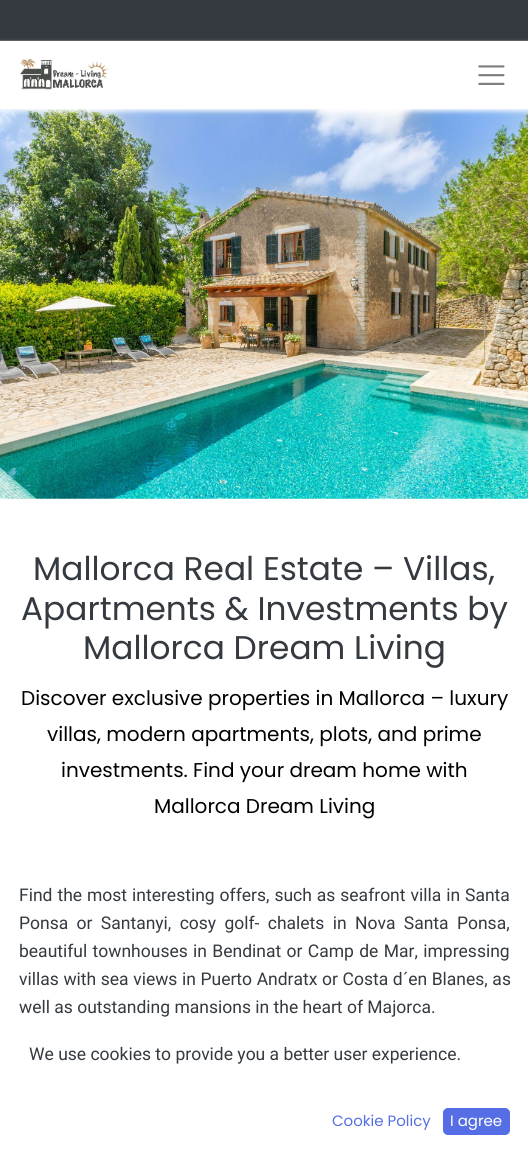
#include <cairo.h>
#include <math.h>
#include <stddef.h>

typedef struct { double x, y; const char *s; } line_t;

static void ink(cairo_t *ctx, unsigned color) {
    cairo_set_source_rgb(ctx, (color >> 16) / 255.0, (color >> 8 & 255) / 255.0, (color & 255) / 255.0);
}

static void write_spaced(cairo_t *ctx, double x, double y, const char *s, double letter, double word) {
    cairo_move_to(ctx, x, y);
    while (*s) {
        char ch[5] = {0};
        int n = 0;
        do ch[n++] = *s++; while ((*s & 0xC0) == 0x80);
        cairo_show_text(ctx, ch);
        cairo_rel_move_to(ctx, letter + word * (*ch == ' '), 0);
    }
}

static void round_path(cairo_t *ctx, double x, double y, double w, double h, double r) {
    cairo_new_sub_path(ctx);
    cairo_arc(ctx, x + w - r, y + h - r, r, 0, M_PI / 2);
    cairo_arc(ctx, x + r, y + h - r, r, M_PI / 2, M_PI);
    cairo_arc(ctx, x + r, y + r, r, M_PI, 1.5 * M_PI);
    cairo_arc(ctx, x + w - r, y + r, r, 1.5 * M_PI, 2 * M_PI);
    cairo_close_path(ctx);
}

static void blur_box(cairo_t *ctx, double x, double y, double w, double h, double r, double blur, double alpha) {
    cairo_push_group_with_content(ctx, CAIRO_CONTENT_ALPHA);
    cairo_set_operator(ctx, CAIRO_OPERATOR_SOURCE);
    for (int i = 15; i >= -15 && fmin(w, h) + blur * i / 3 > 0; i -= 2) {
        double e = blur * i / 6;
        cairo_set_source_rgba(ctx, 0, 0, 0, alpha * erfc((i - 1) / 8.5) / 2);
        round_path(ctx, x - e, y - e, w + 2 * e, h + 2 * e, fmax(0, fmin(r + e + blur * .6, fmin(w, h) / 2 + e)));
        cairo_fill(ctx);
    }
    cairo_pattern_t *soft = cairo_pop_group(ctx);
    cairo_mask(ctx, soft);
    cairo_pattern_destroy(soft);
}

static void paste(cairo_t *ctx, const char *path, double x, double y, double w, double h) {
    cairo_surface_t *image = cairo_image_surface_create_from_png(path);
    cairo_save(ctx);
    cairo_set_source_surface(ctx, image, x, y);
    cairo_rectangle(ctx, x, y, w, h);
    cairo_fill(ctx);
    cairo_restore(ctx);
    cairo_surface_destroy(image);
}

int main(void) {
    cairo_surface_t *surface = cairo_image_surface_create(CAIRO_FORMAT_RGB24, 528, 1164);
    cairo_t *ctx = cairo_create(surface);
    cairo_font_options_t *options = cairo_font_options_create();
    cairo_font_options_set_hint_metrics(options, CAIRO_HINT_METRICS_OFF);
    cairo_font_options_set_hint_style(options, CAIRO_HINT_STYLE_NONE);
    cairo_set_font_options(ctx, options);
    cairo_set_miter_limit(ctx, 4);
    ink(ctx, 0xFFFFFF);
    cairo_paint(ctx);
    ink(ctx, 0x343A40);
    cairo_rectangle(ctx, 0, 0, 528, 40);
    cairo_fill(ctx);
    ink(ctx, 0x4C5257);
    cairo_rectangle(ctx, 0, 40, 528, 1);
    cairo_fill(ctx);
    paste(ctx, "media/3.png", 0, 109, 528, 390);
    ink(ctx, 0xFFFFFF);
    blur_box(ctx, 0, 44, 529, 67, 0, 2.5, 1);
    paste(ctx, "media/1.png", 20, 59, 88, 31);
    paste(ctx, "media/2.png", 478, 65, 27, 20);
    cairo_select_font_face(ctx, "Poppins", CAIRO_FONT_SLANT_NORMAL, CAIRO_FONT_WEIGHT_NORMAL);
    cairo_set_font_size(ctx, 32.8);
    ink(ctx, 0x343A40);
    {
        static const line_t items[] = {
            {33, 580, "Mallorca Real Estate – Villas,"},
            {21, 620, "Apartments & Investments by"},
            {83, 659, "Mallorca Dream Living"},
        };
        for (size_t i = 0; i < sizeof items / sizeof *items; i++) {
            cairo_move_to(ctx, items[i].x, items[i].y);
            cairo_show_text(ctx, items[i].s);
        }
    }
    cairo_set_font_size(ctx, 20);
    ink(ctx, 0x000000);
    {
        static const line_t items[] = {
            {21, 705, "Discover exclusive properties in Mallorca – luxury"},
            {47, 741, "villas, modern apartments, plots, and prime"},
            {61, 777, "investments. Find your dream home with"},
            {154, 813, "Mallorca Dream Living"},
        };
        for (size_t i = 0; i < sizeof items / sizeof *items; i++) {
            cairo_move_to(ctx, items[i].x, items[i].y);
            cairo_show_text(ctx, items[i].s);
        }
    }
    cairo_select_font_face(ctx, "Roboto", CAIRO_FONT_SLANT_NORMAL, CAIRO_FONT_WEIGHT_NORMAL);
    cairo_set_font_size(ctx, 17.5);
    ink(ctx, 0x343A40);
    write_spaced(ctx, 19, 901, "Find the most interesting offers, such as seafront villa in Santa", 0, 0.6);
    write_spaced(ctx, 19, 929, "Ponsa or Santanyi, cosy golf- chalets in Nova Santa Ponsa,", 0, 4);
    write_spaced(ctx, 19, 957, "beautiful townhouses in Bendinat or Camp de Mar, impressing", 0, 1);
    write_spaced(ctx, 19, 985, "villas with sea views in Puerto Andratx or Costa d´en Blanes, as", 0, 0.25);
    cairo_move_to(ctx, 19, 1013);
    cairo_show_text(ctx, "well as outstanding mansions in the heart of Majorca.");
    cairo_move_to(ctx, 29, 1060);
    cairo_show_text(ctx, "We use cookies to provide you a better user experience.");
    cairo_select_font_face(ctx, "Poppins", CAIRO_FONT_SLANT_NORMAL, CAIRO_FONT_WEIGHT_NORMAL);
    cairo_set_font_size(ctx, 15);
    ink(ctx, 0x556EE6);
    cairo_move_to(ctx, 332, 1126);
    cairo_show_text(ctx, "Cookie Policy");
    round_path(ctx, 443.5, 1108.5, 66, 26, 4.5);
    cairo_fill_preserve(ctx);
    cairo_set_line_width(ctx, 1);
    cairo_stroke(ctx);
    ink(ctx, 0xFFFFFF);
    cairo_move_to(ctx, 450, 1126);
    cairo_show_text(ctx, "I agree");
    cairo_surface_write_to_png(surface, "image.png");
    cairo_font_options_destroy(options);
    cairo_destroy(ctx);
    cairo_surface_destroy(surface);
    return 0;
}
